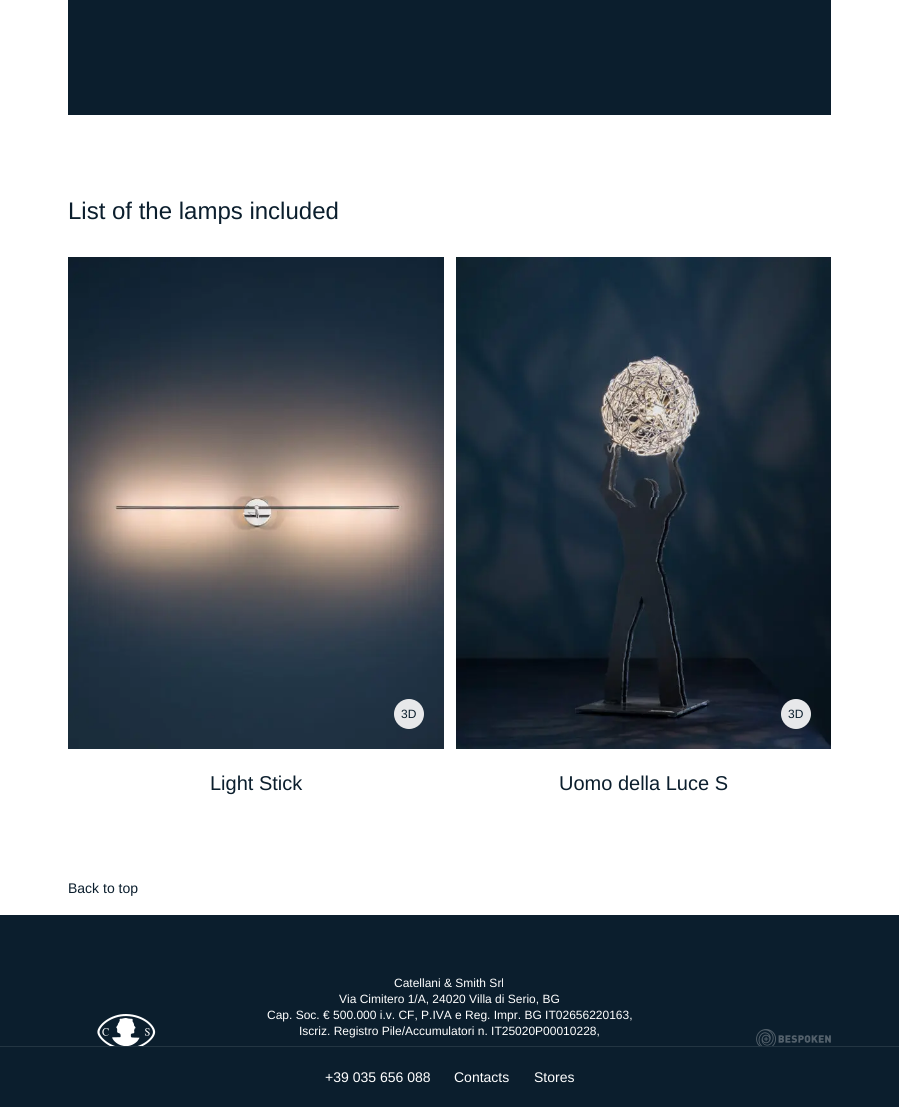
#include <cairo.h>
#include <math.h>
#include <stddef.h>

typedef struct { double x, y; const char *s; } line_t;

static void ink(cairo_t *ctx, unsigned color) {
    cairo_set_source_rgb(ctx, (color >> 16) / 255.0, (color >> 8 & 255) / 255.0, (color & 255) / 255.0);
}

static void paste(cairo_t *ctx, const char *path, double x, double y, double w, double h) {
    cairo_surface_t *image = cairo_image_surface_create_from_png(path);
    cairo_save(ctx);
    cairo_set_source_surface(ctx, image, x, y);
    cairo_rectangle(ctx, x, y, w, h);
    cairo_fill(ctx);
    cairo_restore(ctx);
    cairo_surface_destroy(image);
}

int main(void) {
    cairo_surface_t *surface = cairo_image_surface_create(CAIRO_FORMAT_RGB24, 899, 1107);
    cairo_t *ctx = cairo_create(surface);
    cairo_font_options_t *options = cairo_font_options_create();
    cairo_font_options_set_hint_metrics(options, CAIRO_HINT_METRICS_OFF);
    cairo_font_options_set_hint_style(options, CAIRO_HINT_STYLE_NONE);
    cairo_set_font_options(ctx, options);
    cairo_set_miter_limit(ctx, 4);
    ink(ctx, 0xFFFFFF);
    cairo_paint(ctx);
    ink(ctx, 0x0B1E2D);
    cairo_rectangle(ctx, 68, 0, 763, 115);
    cairo_fill(ctx);
    cairo_select_font_face(ctx, "Liberation Sans", CAIRO_FONT_SLANT_NORMAL, CAIRO_FONT_WEIGHT_NORMAL);
    cairo_set_font_size(ctx, 24);
    cairo_move_to(ctx, 68, 219);
    cairo_show_text(ctx, "List of the lamps included");
    paste(ctx, "media/1.png", 68, 257, 376, 492);
    ink(ctx, 0xE7E8EA);
    cairo_arc(ctx, 409, 714, 15, 0, 2 * M_PI);
    cairo_fill(ctx);
    cairo_set_font_size(ctx, 12);
    ink(ctx, 0x0B1E2D);
    cairo_move_to(ctx, 401, 718);
    cairo_show_text(ctx, "3D");
    cairo_set_font_size(ctx, 20);
    cairo_move_to(ctx, 210, 790);
    cairo_show_text(ctx, "Light Stick");
    paste(ctx, "media/2.png", 456, 257, 375, 492);
    ink(ctx, 0xE7E8EA);
    cairo_arc(ctx, 796, 714, 15, 0, 2 * M_PI);
    cairo_fill(ctx);
    cairo_set_font_size(ctx, 12);
    ink(ctx, 0x0B1E2D);
    cairo_move_to(ctx, 788, 718);
    cairo_show_text(ctx, "3D");
    cairo_set_font_size(ctx, 20);
    cairo_move_to(ctx, 559, 790);
    cairo_show_text(ctx, "Uomo della Luce S");
    cairo_set_font_size(ctx, 14);
    cairo_move_to(ctx, 68, 893);
    cairo_show_text(ctx, "Back to top");
    cairo_rectangle(ctx, 0, 915, 899, 131);
    cairo_fill(ctx);
    paste(ctx, "media/3.png", 97, 1014, 59, 32);
    cairo_set_font_size(ctx, 12);
    ink(ctx, 0xFFFFFF);
    {
        static const line_t items[] = {
            {394, 987, "Catellani & Smith Srl"},
            {339, 1003, "Via Cimitero 1/A, 24020 Villa di Serio, BG"},
            {267, 1019, "Cap. Soc. € 500.000 i.v. CF, P.IVA e Reg. Impr. BG IT02656220163,"},
            {299, 1035, "Iscriz. Registro Pile/Accumulatori n. IT25020P00010228,"},
        };
        for (size_t i = 0; i < sizeof items / sizeof *items; i++) {
            cairo_move_to(ctx, items[i].x, items[i].y);
            cairo_show_text(ctx, items[i].s);
        }
    }
    paste(ctx, "media/4.png", 756, 1029, 75, 17);
    ink(ctx, 0x0B1E2D);
    cairo_rectangle(ctx, 0, 1047, 899, 60);
    cairo_fill(ctx);
    ink(ctx, 0x233542);
    cairo_rectangle(ctx, 0, 1046, 899, 1);
    cairo_fill(ctx);
    cairo_set_font_size(ctx, 14);
    ink(ctx, 0xFFFFFF);
    {
        static const line_t items[] = {
            {325, 1082, "+39 035 656 088"},
            {454, 1082, "Contacts"},
            {534, 1082, "Stores"},
        };
        for (size_t i = 0; i < sizeof items / sizeof *items; i++) {
            cairo_move_to(ctx, items[i].x, items[i].y);
            cairo_show_text(ctx, items[i].s);
        }
    }
    cairo_surface_write_to_png(surface, "image.png");
    cairo_font_options_destroy(options);
    cairo_destroy(ctx);
    cairo_surface_destroy(surface);
    return 0;
}
